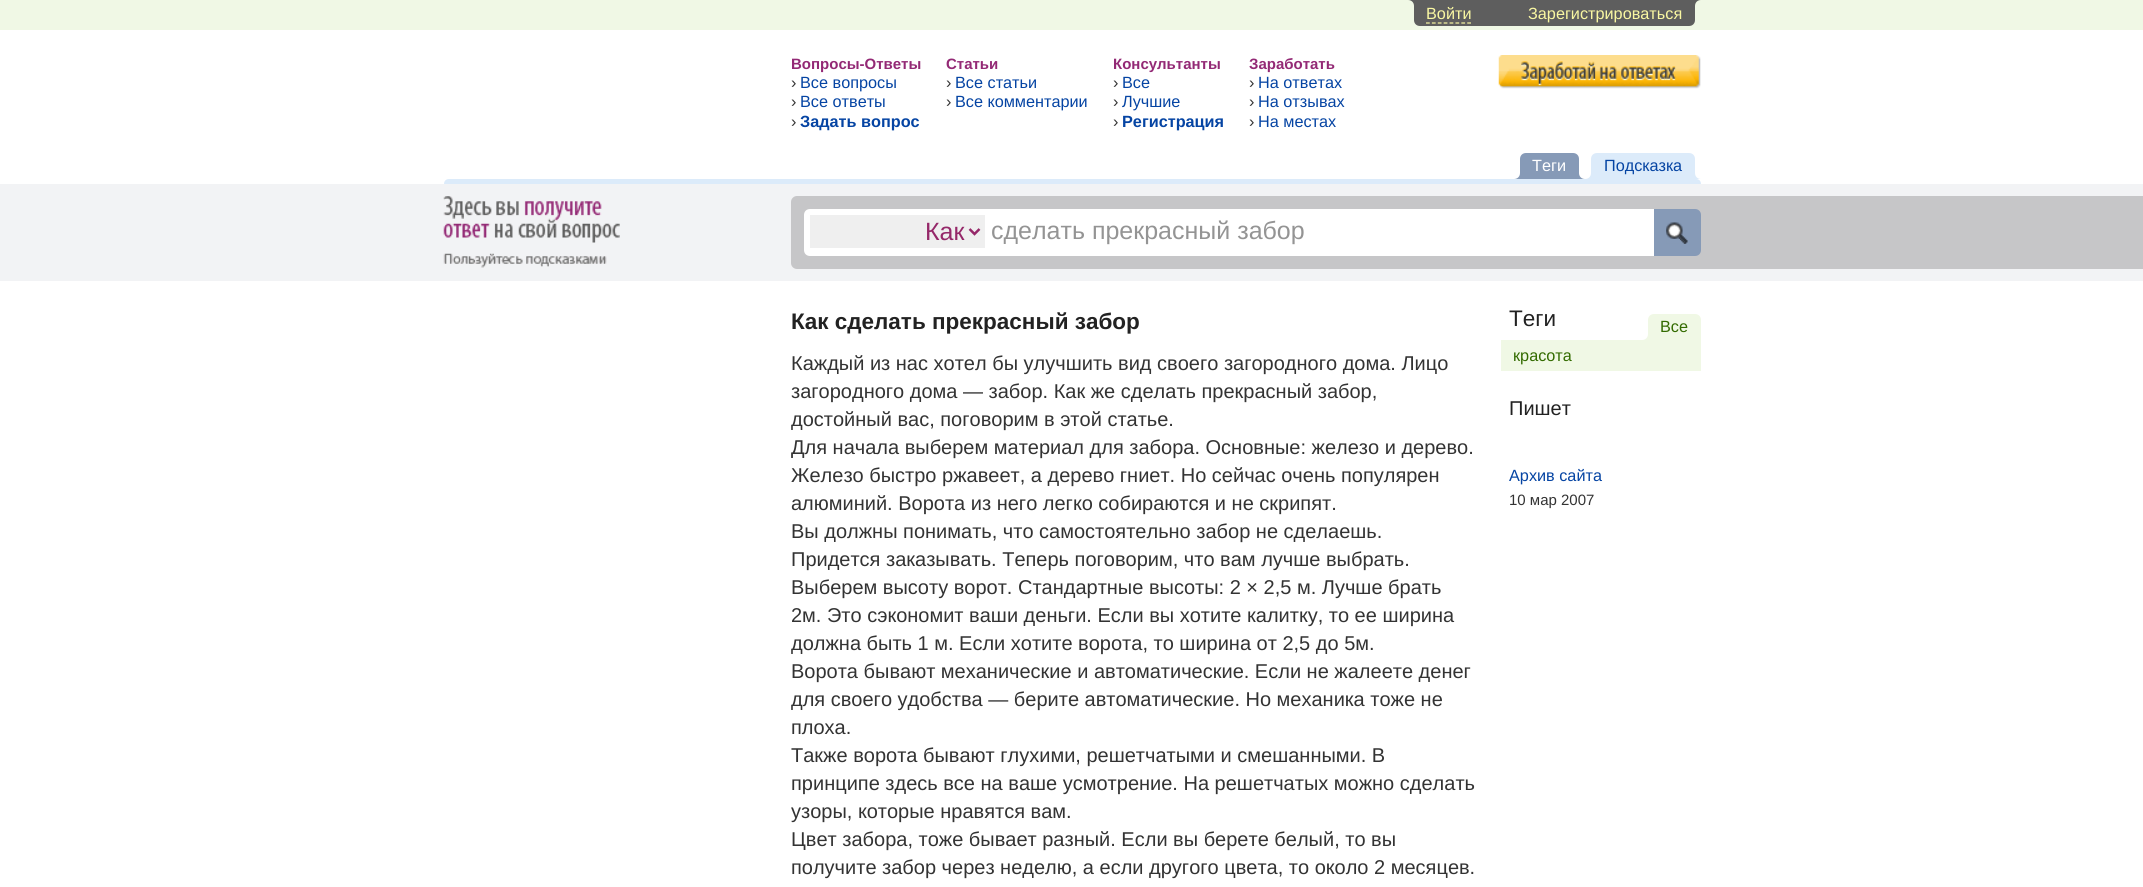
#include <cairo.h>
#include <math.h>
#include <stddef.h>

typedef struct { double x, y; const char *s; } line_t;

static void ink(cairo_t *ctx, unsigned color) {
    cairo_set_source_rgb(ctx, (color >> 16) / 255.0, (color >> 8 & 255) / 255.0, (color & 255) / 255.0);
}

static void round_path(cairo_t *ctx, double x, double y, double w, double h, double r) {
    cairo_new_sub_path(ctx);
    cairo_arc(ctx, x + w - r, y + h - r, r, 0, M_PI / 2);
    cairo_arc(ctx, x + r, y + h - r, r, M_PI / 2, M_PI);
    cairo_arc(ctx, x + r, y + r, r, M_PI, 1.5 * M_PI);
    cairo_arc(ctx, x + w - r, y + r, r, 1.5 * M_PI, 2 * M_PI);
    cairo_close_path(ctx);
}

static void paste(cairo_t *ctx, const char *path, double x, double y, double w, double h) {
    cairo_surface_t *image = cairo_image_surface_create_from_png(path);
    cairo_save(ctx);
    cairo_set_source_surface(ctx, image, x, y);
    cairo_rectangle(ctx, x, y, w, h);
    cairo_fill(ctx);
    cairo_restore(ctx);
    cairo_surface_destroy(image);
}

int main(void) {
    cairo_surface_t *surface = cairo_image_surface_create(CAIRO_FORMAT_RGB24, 2143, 887);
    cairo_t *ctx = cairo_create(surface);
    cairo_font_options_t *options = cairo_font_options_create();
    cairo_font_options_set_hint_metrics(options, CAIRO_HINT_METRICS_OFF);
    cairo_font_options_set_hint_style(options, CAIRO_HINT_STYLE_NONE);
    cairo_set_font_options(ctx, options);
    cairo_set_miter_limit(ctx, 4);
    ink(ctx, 0xFFFFFF);
    cairo_paint(ctx);
    ink(ctx, 0xF0F8E5);
    cairo_rectangle(ctx, 0, 0, 2143, 30);
    cairo_fill(ctx);
    ink(ctx, 0x5E5E5E);
    cairo_rectangle(ctx, 1408, 0, 6, 6);
    cairo_fill(ctx);
    ink(ctx, 0xF0F8E5);
    cairo_new_path(ctx);
    cairo_move_to(ctx, 1408, 0);
    cairo_curve_to(ctx, 1411.5, 0, 1414, 2.5, 1414, 6);
    cairo_line_to(ctx, 1408, 6);
    cairo_close_path(ctx);
    cairo_fill(ctx);
    ink(ctx, 0x5E5E5E);
    cairo_rectangle(ctx, 1695, 0, 6, 6);
    cairo_fill(ctx);
    ink(ctx, 0xF0F8E5);
    cairo_new_path(ctx);
    cairo_move_to(ctx, 1701, 0);
    cairo_line_to(ctx, 1701, 6);
    cairo_line_to(ctx, 1695, 6);
    cairo_curve_to(ctx, 1695, 2.5, 1697.5, 0, 1701, 0);
    cairo_close_path(ctx);
    cairo_fill(ctx);
    ink(ctx, 0x5E5E5E);
    cairo_new_path(ctx);
    cairo_move_to(ctx, 1414, 0);
    cairo_line_to(ctx, 1695, 0);
    cairo_line_to(ctx, 1695, 20);
    cairo_curve_to(ctx, 1695, 23.5, 1692.5, 26, 1689, 26);
    cairo_line_to(ctx, 1420, 26);
    cairo_curve_to(ctx, 1416.5, 26, 1414, 23.5, 1414, 20);
    cairo_close_path(ctx);
    cairo_fill(ctx);
    cairo_select_font_face(ctx, "Liberation Sans", CAIRO_FONT_SLANT_NORMAL, CAIRO_FONT_WEIGHT_NORMAL);
    cairo_set_font_size(ctx, 16.25);
    ink(ctx, 0xF9F7A2);
    cairo_move_to(ctx, 1426, 19);
    cairo_show_text(ctx, "Войти");
    cairo_new_path(ctx);
    cairo_move_to(ctx, 1426, 23);
    cairo_line_to(ctx, 1471, 23);
    cairo_set_line_width(ctx, 1.2);
    cairo_set_dash(ctx, (double[]){3.75, 2.14}, 2, 0);
    cairo_stroke(ctx);
    cairo_move_to(ctx, 1528, 19);
    cairo_show_text(ctx, "Зарегистрироваться");
    cairo_select_font_face(ctx, "Liberation Sans", CAIRO_FONT_SLANT_NORMAL, CAIRO_FONT_WEIGHT_BOLD);
    cairo_set_font_size(ctx, 15);
    ink(ctx, 0x932975);
    cairo_move_to(ctx, 791, 69);
    cairo_show_text(ctx, "Вопросы-Ответы");
    cairo_select_font_face(ctx, "Liberation Sans", CAIRO_FONT_SLANT_NORMAL, CAIRO_FONT_WEIGHT_NORMAL);
    cairo_set_font_size(ctx, 16.25);
    ink(ctx, 0x333333);
    cairo_move_to(ctx, 791, 88);
    cairo_show_text(ctx, "›");
    ink(ctx, 0x0544A3);
    cairo_move_to(ctx, 800, 88);
    cairo_show_text(ctx, "Все вопросы");
    ink(ctx, 0x333333);
    cairo_move_to(ctx, 791, 107);
    cairo_show_text(ctx, "›");
    ink(ctx, 0x0544A3);
    cairo_move_to(ctx, 800, 107);
    cairo_show_text(ctx, "Все ответы");
    ink(ctx, 0x333333);
    cairo_move_to(ctx, 791, 127);
    cairo_show_text(ctx, "›");
    cairo_select_font_face(ctx, "Liberation Sans", CAIRO_FONT_SLANT_NORMAL, CAIRO_FONT_WEIGHT_BOLD);
    ink(ctx, 0x0544A3);
    cairo_move_to(ctx, 800, 127);
    cairo_show_text(ctx, "Задать вопрос");
    cairo_set_font_size(ctx, 15);
    ink(ctx, 0x932975);
    cairo_move_to(ctx, 946, 69);
    cairo_show_text(ctx, "Статьи");
    cairo_select_font_face(ctx, "Liberation Sans", CAIRO_FONT_SLANT_NORMAL, CAIRO_FONT_WEIGHT_NORMAL);
    cairo_set_font_size(ctx, 16.25);
    ink(ctx, 0x333333);
    cairo_move_to(ctx, 946, 88);
    cairo_show_text(ctx, "›");
    ink(ctx, 0x0544A3);
    cairo_move_to(ctx, 955, 88);
    cairo_show_text(ctx, "Все cтатьи");
    ink(ctx, 0x333333);
    cairo_move_to(ctx, 946, 107);
    cairo_show_text(ctx, "›");
    ink(ctx, 0x0544A3);
    cairo_move_to(ctx, 955, 107);
    cairo_show_text(ctx, "Все комментарии");
    cairo_select_font_face(ctx, "Liberation Sans", CAIRO_FONT_SLANT_NORMAL, CAIRO_FONT_WEIGHT_BOLD);
    cairo_set_font_size(ctx, 15);
    ink(ctx, 0x932975);
    cairo_move_to(ctx, 1113, 69);
    cairo_show_text(ctx, "Консультанты");
    cairo_select_font_face(ctx, "Liberation Sans", CAIRO_FONT_SLANT_NORMAL, CAIRO_FONT_WEIGHT_NORMAL);
    cairo_set_font_size(ctx, 16.25);
    ink(ctx, 0x333333);
    cairo_move_to(ctx, 1113, 88);
    cairo_show_text(ctx, "›");
    ink(ctx, 0x0544A3);
    cairo_move_to(ctx, 1122, 88);
    cairo_show_text(ctx, "Все");
    ink(ctx, 0x333333);
    cairo_move_to(ctx, 1113, 107);
    cairo_show_text(ctx, "›");
    ink(ctx, 0x0544A3);
    cairo_move_to(ctx, 1122, 107);
    cairo_show_text(ctx, "Лучшие");
    ink(ctx, 0x333333);
    cairo_move_to(ctx, 1113, 127);
    cairo_show_text(ctx, "›");
    cairo_select_font_face(ctx, "Liberation Sans", CAIRO_FONT_SLANT_NORMAL, CAIRO_FONT_WEIGHT_BOLD);
    ink(ctx, 0x0544A3);
    cairo_move_to(ctx, 1122, 127);
    cairo_show_text(ctx, "Регистрация");
    cairo_set_font_size(ctx, 15);
    ink(ctx, 0x932975);
    cairo_move_to(ctx, 1249, 69);
    cairo_show_text(ctx, "Заработать");
    cairo_select_font_face(ctx, "Liberation Sans", CAIRO_FONT_SLANT_NORMAL, CAIRO_FONT_WEIGHT_NORMAL);
    cairo_set_font_size(ctx, 16.25);
    ink(ctx, 0x333333);
    cairo_move_to(ctx, 1249, 88);
    cairo_show_text(ctx, "›");
    ink(ctx, 0x0544A3);
    cairo_move_to(ctx, 1258, 88);
    cairo_show_text(ctx, "На ответах");
    ink(ctx, 0x333333);
    cairo_move_to(ctx, 1249, 107);
    cairo_show_text(ctx, "›");
    ink(ctx, 0x0544A3);
    cairo_move_to(ctx, 1258, 107);
    cairo_show_text(ctx, "На отзывах");
    ink(ctx, 0x333333);
    cairo_move_to(ctx, 1249, 127);
    cairo_show_text(ctx, "›");
    ink(ctx, 0x0544A3);
    cairo_move_to(ctx, 1258, 127);
    cairo_show_text(ctx, "На местах");
    paste(ctx, "media/1.png", 1498, 55, 203, 34);
    ink(ctx, 0x869AB7);
    cairo_new_path(ctx);
    cairo_move_to(ctx, 1526, 153);
    cairo_line_to(ctx, 1573, 153);
    cairo_curve_to(ctx, 1576.5, 153, 1579, 155.5, 1579, 159);
    cairo_line_to(ctx, 1579, 179);
    cairo_line_to(ctx, 1520, 179);
    cairo_line_to(ctx, 1520, 159);
    cairo_curve_to(ctx, 1520, 155.5, 1522.5, 153, 1526, 153);
    cairo_close_path(ctx);
    cairo_fill(ctx);
    ink(ctx, 0xFFFFFF);
    cairo_move_to(ctx, 1532, 171);
    cairo_show_text(ctx, "Теги");
    ink(ctx, 0x869AB7);
    cairo_rectangle(ctx, 1514, 173, 6, 6);
    cairo_fill(ctx);
    ink(ctx, 0xFFFFFF);
    cairo_new_path(ctx);
    cairo_move_to(ctx, 1514, 173);
    cairo_line_to(ctx, 1520, 173);
    cairo_curve_to(ctx, 1520, 176.5, 1517.5, 179, 1514, 179);
    cairo_close_path(ctx);
    cairo_fill(ctx);
    ink(ctx, 0x869AB7);
    cairo_rectangle(ctx, 1579, 173, 6, 6);
    cairo_fill(ctx);
    ink(ctx, 0xFFFFFF);
    cairo_new_path(ctx);
    cairo_move_to(ctx, 1579, 173);
    cairo_line_to(ctx, 1585, 173);
    cairo_line_to(ctx, 1585, 179);
    cairo_curve_to(ctx, 1581.5, 179, 1579, 176.5, 1579, 173);
    cairo_close_path(ctx);
    cairo_fill(ctx);
    ink(ctx, 0xDCEBFA);
    cairo_new_path(ctx);
    cairo_move_to(ctx, 1597, 153);
    cairo_line_to(ctx, 1689, 153);
    cairo_curve_to(ctx, 1692.5, 153, 1695, 155.5, 1695, 159);
    cairo_line_to(ctx, 1695, 179);
    cairo_line_to(ctx, 1591, 179);
    cairo_line_to(ctx, 1591, 159);
    cairo_curve_to(ctx, 1591, 155.5, 1593.5, 153, 1597, 153);
    cairo_close_path(ctx);
    cairo_fill(ctx);
    ink(ctx, 0x0544A3);
    cairo_move_to(ctx, 1604, 171);
    cairo_show_text(ctx, "Подсказка");
    ink(ctx, 0xDCEBFA);
    cairo_rectangle(ctx, 1585, 173, 6, 6);
    cairo_fill(ctx);
    ink(ctx, 0xFFFFFF);
    cairo_new_path(ctx);
    cairo_move_to(ctx, 1585, 173);
    cairo_line_to(ctx, 1591, 173);
    cairo_curve_to(ctx, 1591, 176.5, 1588.5, 179, 1585, 179);
    cairo_close_path(ctx);
    cairo_fill(ctx);
    ink(ctx, 0xDCEBFA);
    cairo_rectangle(ctx, 1695, 173, 6, 6);
    cairo_fill(ctx);
    ink(ctx, 0xFFFFFF);
    cairo_new_path(ctx);
    cairo_move_to(ctx, 1695, 173);
    cairo_line_to(ctx, 1701, 173);
    cairo_line_to(ctx, 1701, 179);
    cairo_curve_to(ctx, 1697.5, 179, 1695, 176.5, 1695, 173);
    cairo_close_path(ctx);
    cairo_fill(ctx);
    ink(ctx, 0xDCEBFA);
    cairo_new_path(ctx);
    cairo_move_to(ctx, 449, 179);
    cairo_line_to(ctx, 1696, 179);
    cairo_curve_to(ctx, 1699, 179, 1701, 181, 1701, 184);
    cairo_line_to(ctx, 444, 184);
    cairo_curve_to(ctx, 444, 181, 446, 179, 449, 179);
    cairo_close_path(ctx);
    cairo_fill(ctx);
    ink(ctx, 0xF2F3F5);
    cairo_rectangle(ctx, 0, 184, 2143, 97);
    cairo_fill(ctx);
    paste(ctx, "media/2.png", 443, 196, 177, 72);
    ink(ctx, 0xC6C6C8);
    cairo_rectangle(ctx, 1695, 196, 448, 73);
    cairo_fill(ctx);
    round_path(ctx, 791, 196, 910, 73, 6);
    cairo_fill(ctx);
    ink(ctx, 0xFFFFFF);
    cairo_new_path(ctx);
    cairo_move_to(ctx, 810, 209);
    cairo_line_to(ctx, 1654, 209);
    cairo_line_to(ctx, 1654, 256);
    cairo_line_to(ctx, 810, 256);
    cairo_curve_to(ctx, 806.5, 256, 804, 253.5, 804, 250);
    cairo_line_to(ctx, 804, 215);
    cairo_curve_to(ctx, 804, 211.5, 806.5, 209, 810, 209);
    cairo_close_path(ctx);
    cairo_fill(ctx);
    ink(ctx, 0xEFEFEF);
    cairo_rectangle(ctx, 810, 215, 175, 33);
    cairo_fill(ctx);
    cairo_new_path(ctx);
    cairo_move_to(ctx, 969.5, 229);
    cairo_line_to(ctx, 974.5, 234);
    cairo_line_to(ctx, 979.5, 229);
    ink(ctx, 0x952869);
    cairo_set_line_width(ctx, 2.5);
    cairo_set_dash(ctx, NULL, 0, 0);
    cairo_stroke(ctx);
    cairo_set_font_size(ctx, 25);
    cairo_move_to(ctx, 925, 240);
    cairo_show_text(ctx, "Как");
    ink(ctx, 0x949494);
    cairo_move_to(ctx, 991, 239);
    cairo_show_text(ctx, "сделать прекрасный забор");
    ink(ctx, 0x869AB7);
    cairo_new_path(ctx);
    cairo_move_to(ctx, 1654, 209);
    cairo_line_to(ctx, 1695, 209);
    cairo_curve_to(ctx, 1698.5, 209, 1701, 211.5, 1701, 215);
    cairo_line_to(ctx, 1701, 250);
    cairo_curve_to(ctx, 1701, 253.5, 1698.5, 256, 1695, 256);
    cairo_line_to(ctx, 1654, 256);
    cairo_close_path(ctx);
    cairo_fill(ctx);
    paste(ctx, "media/3.png", 1666, 222, 22, 22);
    cairo_select_font_face(ctx, "Liberation Sans", CAIRO_FONT_SLANT_NORMAL, CAIRO_FONT_WEIGHT_BOLD);
    cairo_set_font_size(ctx, 22.5);
    ink(ctx, 0x222222);
    cairo_move_to(ctx, 791, 329);
    cairo_show_text(ctx, "Как сделать прекрасный забор");
    cairo_select_font_face(ctx, "Liberation Sans", CAIRO_FONT_SLANT_NORMAL, CAIRO_FONT_WEIGHT_NORMAL);
    cairo_set_font_size(ctx, 20);
    ink(ctx, 0x333333);
    cairo_move_to(ctx, 791, 370);
    cairo_show_text(ctx, "Каждый из нас хотел бы улучшить вид своего загородного дома. Лицо");
    cairo_move_to(ctx, 791, 398);
    cairo_show_text(ctx, "загородного дома — забор. Как же сделать прекрасный забор,");
    cairo_save(ctx);
    cairo_rectangle(ctx, 791, 306, 910, 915);
    cairo_clip(ctx);
    cairo_move_to(ctx, 791, 426);
    cairo_show_text(ctx, "достойный вас, поговорим в этой статье.");
    cairo_move_to(ctx, 791, 454);
    cairo_show_text(ctx, "Для начала выберем материал для забора. Основные: железо и дерево.");
    cairo_restore(ctx);
    {
        static const line_t items[] = {
            {791, 482, "Железо быстро ржавеет, а дерево гниет. Но сейчас очень популярен"},
            {791, 510, "алюминий. Ворота из него легко собираются и не скрипят."},
            {791, 538, "Вы должны понимать, что самостоятельно забор не сделаешь."},
            {791, 566, "Придется заказывать. Теперь поговорим, что вам лучше выбрать."},
            {791, 594, "Выберем высоту ворот. Стандартные высоты: 2 × 2,5 м. Лучше брать"},
            {791, 622, "2м. Это сэкономит ваши деньги. Если вы хотите калитку, то ее ширина"},
        };
        for (size_t i = 0; i < sizeof items / sizeof *items; i++) {
            cairo_move_to(ctx, items[i].x, items[i].y);
            cairo_show_text(ctx, items[i].s);
        }
    }
    cairo_save(ctx);
    cairo_rectangle(ctx, 791, 306, 910, 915);
    cairo_clip(ctx);
    cairo_move_to(ctx, 791, 650);
    cairo_show_text(ctx, "должна быть 1 м. Если хотите ворота, то ширина от 2,5 до 5м.");
    cairo_restore(ctx);
    cairo_move_to(ctx, 791, 678);
    cairo_show_text(ctx, "Ворота бывают механические и автоматические. Если не жалеете денег");
    cairo_save(ctx);
    cairo_rectangle(ctx, 791, 306, 910, 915);
    cairo_clip(ctx);
    cairo_move_to(ctx, 791, 706);
    cairo_show_text(ctx, "для своего удобства — берите автоматические. Но механика тоже не");
    cairo_restore(ctx);
    {
        static const line_t items[] = {
            {791, 734, "плоха."},
            {791, 762, "Также ворота бывают глухими, решетчатыми и смешанными. В"},
            {791, 790, "принципе здесь все на ваше усмотрение. На решетчатых можно сделать"},
            {791, 818, "узоры, которые нравятся вам."},
            {791, 846, "Цвет забора, тоже бывает разный. Если вы берете белый, то вы"},
            {791, 874, "получите забор через неделю, а если другого цвета, то около 2 месяцев."},
        };
        for (size_t i = 0; i < sizeof items / sizeof *items; i++) {
            cairo_move_to(ctx, items[i].x, items[i].y);
            cairo_show_text(ctx, items[i].s);
        }
    }
    cairo_set_font_size(ctx, 22.5);
    ink(ctx, 0x222222);
    cairo_move_to(ctx, 1509, 326);
    cairo_show_text(ctx, "Теги");
    ink(ctx, 0xF0F8E5);
    cairo_new_path(ctx);
    cairo_move_to(ctx, 1654, 314);
    cairo_line_to(ctx, 1695, 314);
    cairo_curve_to(ctx, 1698.5, 314, 1701, 316.5, 1701, 320);
    cairo_line_to(ctx, 1701, 340);
    cairo_line_to(ctx, 1648, 340);
    cairo_line_to(ctx, 1648, 320);
    cairo_curve_to(ctx, 1648, 316.5, 1650.5, 314, 1654, 314);
    cairo_close_path(ctx);
    cairo_fill(ctx);
    cairo_set_font_size(ctx, 16.25);
    ink(ctx, 0x336B00);
    cairo_move_to(ctx, 1660, 332);
    cairo_show_text(ctx, "Все");
    ink(ctx, 0xF0F8E5);
    cairo_rectangle(ctx, 1641, 334, 7, 6);
    cairo_fill(ctx);
    ink(ctx, 0xFFFFFF);
    cairo_new_path(ctx);
    cairo_move_to(ctx, 1641, 334);
    cairo_line_to(ctx, 1648, 334);
    cairo_curve_to(ctx, 1648, 337.5, 1645.5, 340, 1642, 340);
    cairo_line_to(ctx, 1641, 340);
    cairo_close_path(ctx);
    cairo_fill(ctx);
    ink(ctx, 0xF0F8E5);
    cairo_rectangle(ctx, 1501, 340, 200, 31);
    cairo_fill(ctx);
    ink(ctx, 0x336B00);
    cairo_move_to(ctx, 1513, 361);
    cairo_show_text(ctx, "красота");
    cairo_set_font_size(ctx, 20);
    ink(ctx, 0x222222);
    cairo_move_to(ctx, 1509, 415);
    cairo_show_text(ctx, "Пишет");
    cairo_set_font_size(ctx, 16.25);
    ink(ctx, 0x0544A3);
    cairo_move_to(ctx, 1509, 481);
    cairo_show_text(ctx, "Архив сайта");
    cairo_set_font_size(ctx, 15);
    ink(ctx, 0x333333);
    cairo_move_to(ctx, 1509, 505);
    cairo_show_text(ctx, "10 мар 2007");
    cairo_surface_write_to_png(surface, "image.png");
    cairo_font_options_destroy(options);
    cairo_destroy(ctx);
    cairo_surface_destroy(surface);
    return 0;
}
